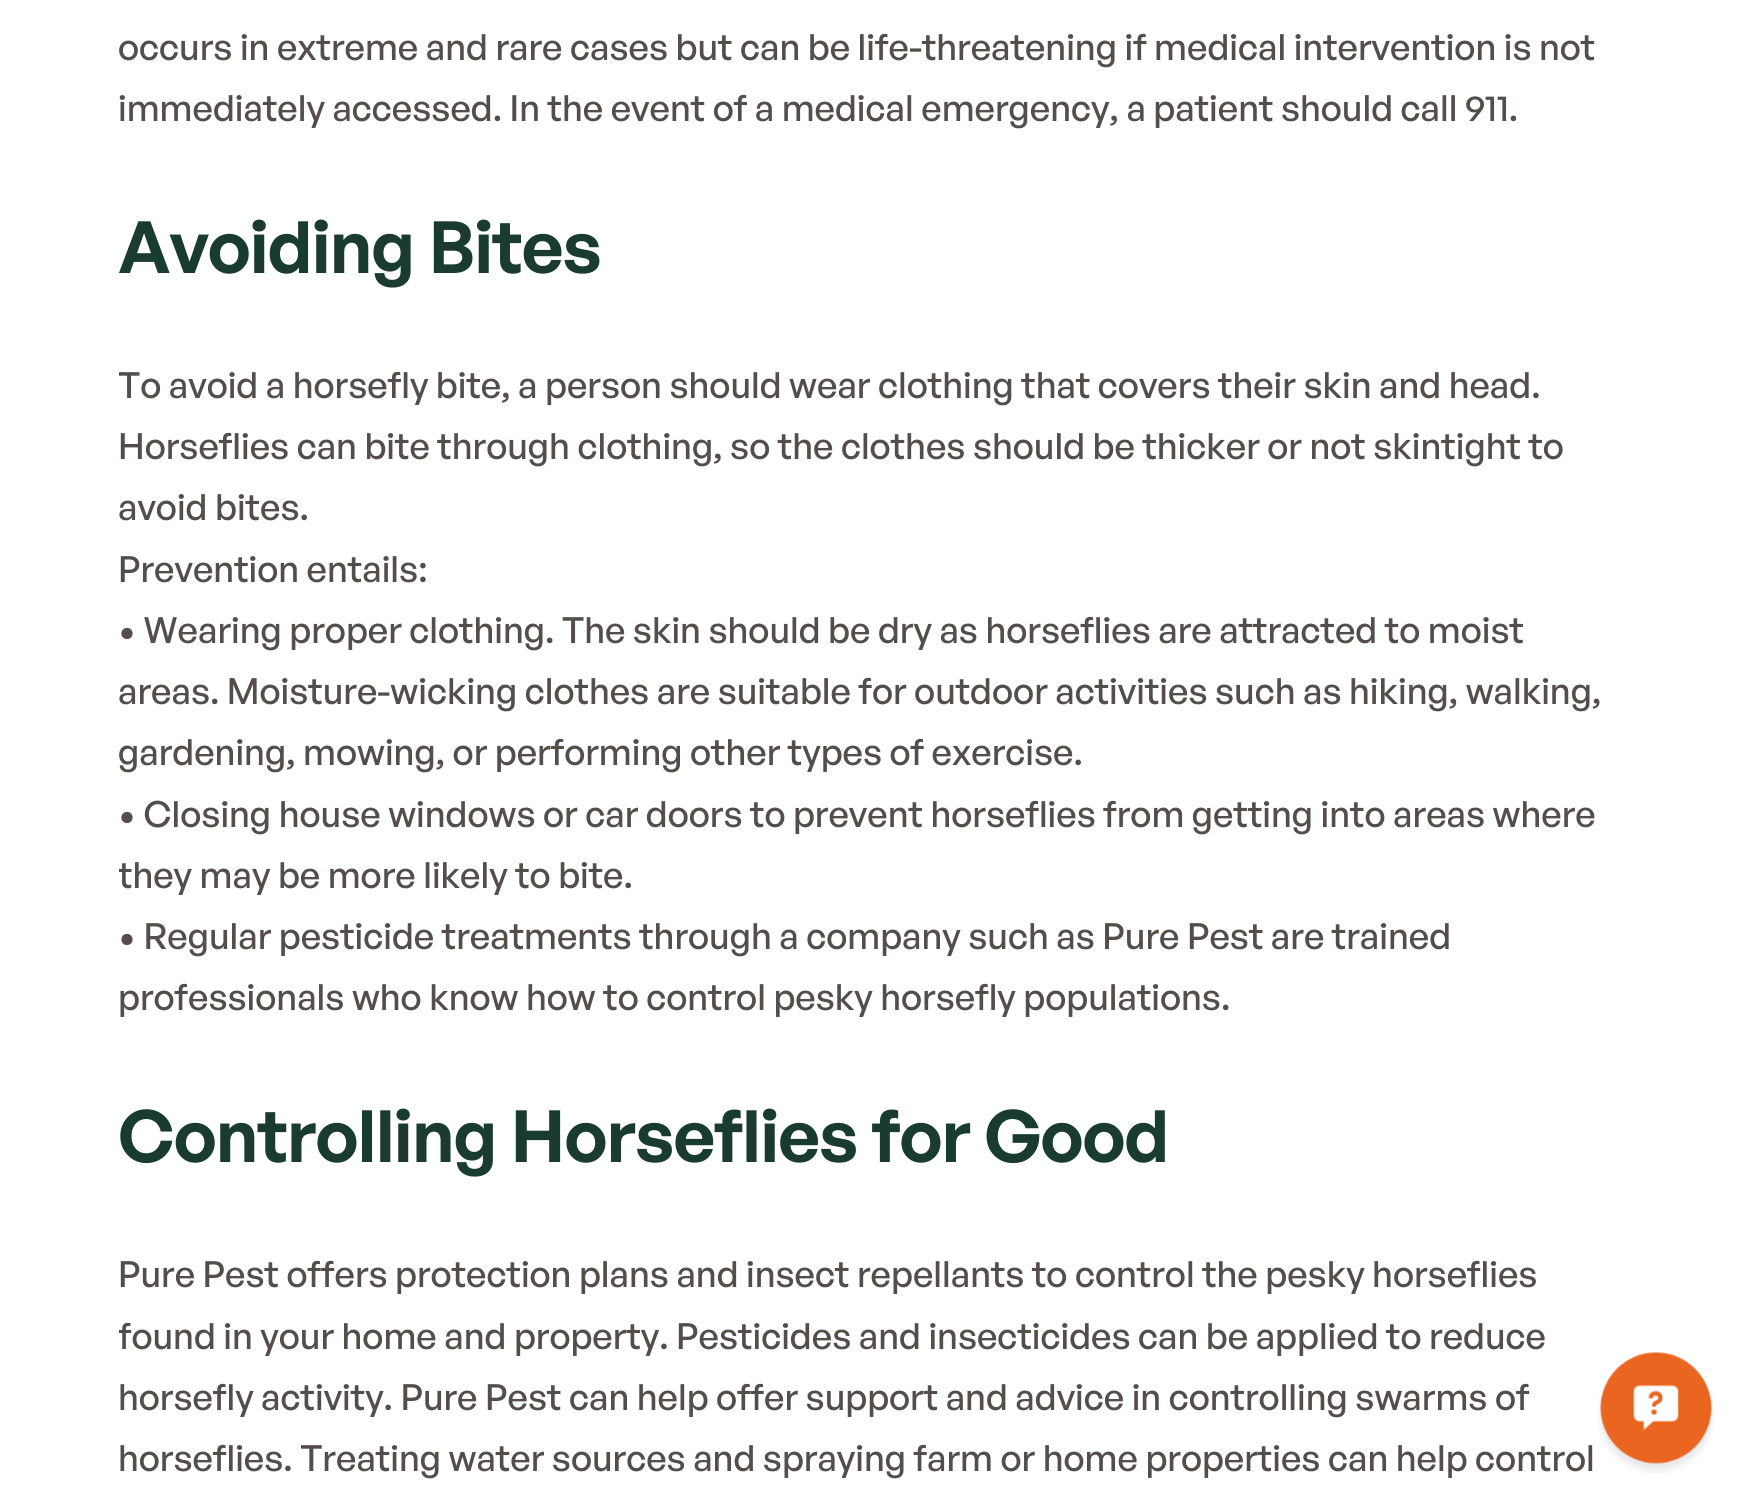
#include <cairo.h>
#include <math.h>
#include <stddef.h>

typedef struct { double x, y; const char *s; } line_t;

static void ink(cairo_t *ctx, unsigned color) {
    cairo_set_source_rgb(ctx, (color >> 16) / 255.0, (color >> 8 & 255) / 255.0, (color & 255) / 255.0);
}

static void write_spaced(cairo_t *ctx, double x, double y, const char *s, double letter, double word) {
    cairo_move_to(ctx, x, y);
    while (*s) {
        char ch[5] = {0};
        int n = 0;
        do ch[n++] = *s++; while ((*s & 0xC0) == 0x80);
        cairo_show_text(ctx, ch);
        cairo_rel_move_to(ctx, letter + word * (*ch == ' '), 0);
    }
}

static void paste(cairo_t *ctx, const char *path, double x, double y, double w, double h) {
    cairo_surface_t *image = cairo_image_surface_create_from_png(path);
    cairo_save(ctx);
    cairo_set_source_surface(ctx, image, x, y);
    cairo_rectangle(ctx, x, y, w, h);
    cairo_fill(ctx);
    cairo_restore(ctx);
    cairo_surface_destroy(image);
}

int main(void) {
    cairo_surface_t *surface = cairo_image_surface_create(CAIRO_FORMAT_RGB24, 1748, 1506);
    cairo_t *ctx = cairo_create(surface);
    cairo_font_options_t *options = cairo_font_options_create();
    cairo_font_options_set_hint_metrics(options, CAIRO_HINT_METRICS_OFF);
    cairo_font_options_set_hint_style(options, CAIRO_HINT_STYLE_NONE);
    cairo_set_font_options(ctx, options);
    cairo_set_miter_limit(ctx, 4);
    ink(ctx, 0xFFFFFF);
    cairo_paint(ctx);
    cairo_select_font_face(ctx, "General Sans Medium", CAIRO_FONT_SLANT_NORMAL, CAIRO_FONT_WEIGHT_NORMAL);
    cairo_set_font_size(ctx, 36);
    ink(ctx, 0x544D49);
    cairo_move_to(ctx, 118, 60);
    cairo_show_text(ctx, "occurs in extreme and rare cases but can be life-threatening if medical intervention is not");
    cairo_move_to(ctx, 118, 121);
    cairo_show_text(ctx, "immediately accessed. In the event of a medical emergency, a patient should call 911.");
    cairo_select_font_face(ctx, "General Sans SemiBold", CAIRO_FONT_SLANT_NORMAL, CAIRO_FONT_WEIGHT_NORMAL);
    cairo_set_font_size(ctx, 72);
    ink(ctx, 0x193B30);
    write_spaced(ctx, 118, 273, "Avoiding Bites", -0.9, 0);
    cairo_save(ctx);
    cairo_rectangle(ctx, 119, 0, 1512, 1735);
    cairo_clip(ctx);
    cairo_select_font_face(ctx, "General Sans Medium", CAIRO_FONT_SLANT_NORMAL, CAIRO_FONT_WEIGHT_NORMAL);
    cairo_set_font_size(ctx, 36);
    ink(ctx, 0x544D49);
    cairo_move_to(ctx, 118, 398);
    cairo_show_text(ctx, "To avoid a horsefly bite, a person should wear clothing that covers their skin and head.");
    cairo_restore(ctx);
    cairo_select_font_face(ctx, "General Sans Medium", CAIRO_FONT_SLANT_NORMAL, CAIRO_FONT_WEIGHT_NORMAL);
    cairo_set_font_size(ctx, 36);
    ink(ctx, 0x544D49);
    {
        static const line_t items[] = {
            {118, 459, "Horseflies can bite through clothing, so the clothes should be thicker or not skintight to"},
            {118, 520, "avoid bites."},
            {118, 582, "Prevention entails:"},
            {118, 643, "• Wearing proper clothing. The skin should be dry as horseflies are attracted to moist"},
            {118, 704, "areas. Moisture-wicking clothes are suitable for outdoor activities such as hiking, walking,"},
            {118, 765, "gardening, mowing, or performing other types of exercise."},
            {118, 827, "• Closing house windows or car doors to prevent horseflies from getting into areas where"},
        };
        for (size_t i = 0; i < sizeof items / sizeof *items; i++) {
            cairo_move_to(ctx, items[i].x, items[i].y);
            cairo_show_text(ctx, items[i].s);
        }
    }
    cairo_save(ctx);
    cairo_rectangle(ctx, 119, 0, 1512, 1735);
    cairo_clip(ctx);
    cairo_move_to(ctx, 118, 888);
    cairo_show_text(ctx, "they may be more likely to bite.");
    cairo_restore(ctx);
    cairo_move_to(ctx, 118, 949);
    cairo_show_text(ctx, "• Regular pesticide treatments through a company such as Pure Pest are trained");
    cairo_move_to(ctx, 118, 1010);
    cairo_show_text(ctx, "professionals who know how to control pesky horsefly populations.");
    cairo_select_font_face(ctx, "General Sans SemiBold", CAIRO_FONT_SLANT_NORMAL, CAIRO_FONT_WEIGHT_NORMAL);
    cairo_set_font_size(ctx, 72);
    ink(ctx, 0x193B30);
    write_spaced(ctx, 118, 1162, "Controlling Horseflies for Good", -0.9, 0);
    cairo_select_font_face(ctx, "General Sans Medium", CAIRO_FONT_SLANT_NORMAL, CAIRO_FONT_WEIGHT_NORMAL);
    cairo_set_font_size(ctx, 36);
    ink(ctx, 0x544D49);
    cairo_move_to(ctx, 118, 1287);
    cairo_show_text(ctx, "Pure Pest offers protection plans and insect repellants to control the pesky horseflies");
    cairo_save(ctx);
    cairo_rectangle(ctx, 119, 0, 1512, 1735);
    cairo_clip(ctx);
    cairo_move_to(ctx, 118, 1349);
    cairo_show_text(ctx, "found in your home and property. Pesticides and insecticides can be applied to reduce");
    cairo_restore(ctx);
    cairo_move_to(ctx, 118, 1410);
    cairo_show_text(ctx, "horsefly activity. Pure Pest can help offer support and advice in controlling swarms of");
    cairo_move_to(ctx, 118, 1471);
    cairo_show_text(ctx, "horseflies. Treating water sources and spraying farm or home properties can help control");
    paste(ctx, "media/1.png", 1598, 1352, 116, 121);
    cairo_surface_write_to_png(surface, "image.png");
    cairo_font_options_destroy(options);
    cairo_destroy(ctx);
    cairo_surface_destroy(surface);
    return 0;
}
